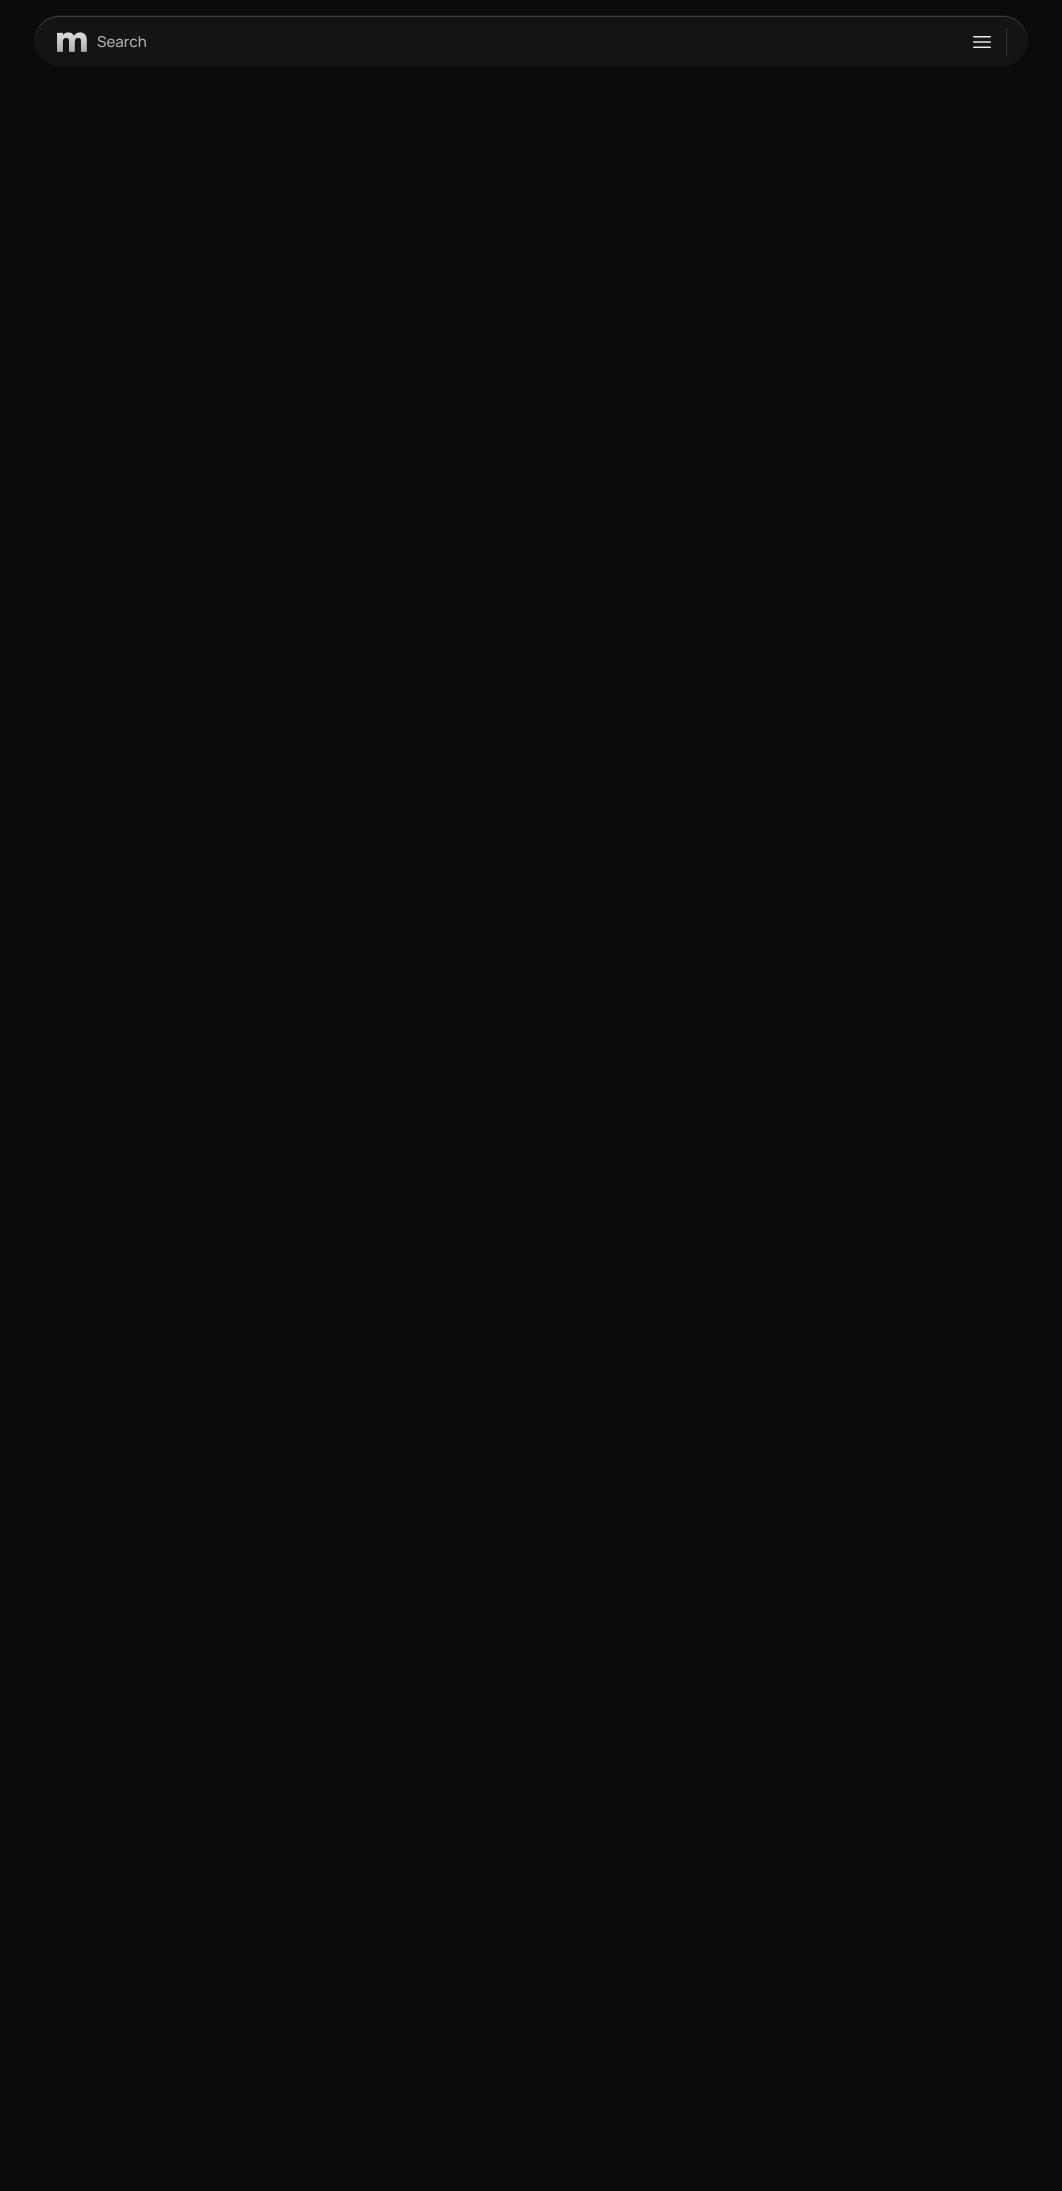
#include <cairo.h>
#include <math.h>
#include <stddef.h>


static void ink(cairo_t *ctx, unsigned color) {
    cairo_set_source_rgb(ctx, (color >> 16) / 255.0, (color >> 8 & 255) / 255.0, (color & 255) / 255.0);
}

static void round_path(cairo_t *ctx, double x, double y, double w, double h, double r) {
    cairo_new_sub_path(ctx);
    cairo_arc(ctx, x + w - r, y + h - r, r, 0, M_PI / 2);
    cairo_arc(ctx, x + r, y + h - r, r, M_PI / 2, M_PI);
    cairo_arc(ctx, x + r, y + r, r, M_PI, 1.5 * M_PI);
    cairo_arc(ctx, x + w - r, y + r, r, 1.5 * M_PI, 2 * M_PI);
    cairo_close_path(ctx);
}

static void blur_box(cairo_t *ctx, double x, double y, double w, double h, double r, double blur, double alpha) {
    cairo_push_group_with_content(ctx, CAIRO_CONTENT_ALPHA);
    cairo_set_operator(ctx, CAIRO_OPERATOR_SOURCE);
    for (int i = 15; i >= -15 && fmin(w, h) + blur * i / 3 > 0; i -= 2) {
        double e = blur * i / 6;
        cairo_set_source_rgba(ctx, 0, 0, 0, alpha * erfc((i - 1) / 8.5) / 2);
        round_path(ctx, x - e, y - e, w + 2 * e, h + 2 * e, fmax(0, fmin(r + e + blur * .6, fmin(w, h) / 2 + e)));
        cairo_fill(ctx);
    }
    cairo_pattern_t *soft = cairo_pop_group(ctx);
    cairo_mask(ctx, soft);
    cairo_pattern_destroy(soft);
}

static void paste(cairo_t *ctx, const char *path, double x, double y, double w, double h) {
    cairo_surface_t *image = cairo_image_surface_create_from_png(path);
    cairo_save(ctx);
    cairo_set_source_surface(ctx, image, x, y);
    cairo_rectangle(ctx, x, y, w, h);
    cairo_fill(ctx);
    cairo_restore(ctx);
    cairo_surface_destroy(image);
}

int main(void) {
    cairo_surface_t *surface = cairo_image_surface_create(CAIRO_FORMAT_RGB24, 1062, 2191);
    cairo_t *ctx = cairo_create(surface);
    cairo_font_options_t *options = cairo_font_options_create();
    cairo_font_options_set_hint_metrics(options, CAIRO_HINT_METRICS_OFF);
    cairo_font_options_set_hint_style(options, CAIRO_HINT_STYLE_NONE);
    cairo_set_font_options(ctx, options);
    cairo_set_miter_limit(ctx, 4);
    ink(ctx, 0x0A0B0D);
    cairo_paint(ctx);
    cairo_save(ctx);
    cairo_set_fill_rule(ctx, CAIRO_FILL_RULE_EVEN_ODD);
    cairo_new_path(ctx);
    cairo_move_to(ctx, 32, 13);
    cairo_line_to(ctx, 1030, 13);
    cairo_line_to(ctx, 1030, 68);
    cairo_line_to(ctx, 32, 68);
    cairo_close_path(ctx);
    cairo_move_to(ctx, 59.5, 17);
    cairo_line_to(ctx, 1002.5, 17);
    cairo_curve_to(ctx, 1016, 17, 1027, 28, 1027, 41.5);
    cairo_curve_to(ctx, 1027, 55, 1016, 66, 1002.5, 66);
    cairo_line_to(ctx, 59.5, 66);
    cairo_curve_to(ctx, 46, 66, 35, 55, 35, 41.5);
    cairo_curve_to(ctx, 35, 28, 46, 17, 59.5, 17);
    cairo_close_path(ctx);
    cairo_clip(ctx);
    ink(ctx, 0xFFFFFF);
    blur_box(ctx, 35, 16, 992, 49, 24.5, 0.5, 0.24);
    cairo_restore(ctx);
    cairo_set_source_rgba(ctx, 0.216, 0.22, 0.224, 0.2);
    round_path(ctx, 35, 17, 992, 49, 24.5);
    cairo_fill(ctx);
    paste(ctx, "media/1.png", 57, 32, 30, 20);
    cairo_select_font_face(ctx, "Manrope Medium", CAIRO_FONT_SLANT_NORMAL, CAIRO_FONT_WEIGHT_NORMAL);
    cairo_set_font_size(ctx, 15);
    ink(ctx, 0xAFAFB0);
    cairo_move_to(ctx, 97, 47);
    cairo_show_text(ctx, "Search");
    ink(ctx, 0x363739);
    cairo_rectangle(ctx, 1006, 28, 1, 28);
    cairo_fill(ctx);
    paste(ctx, "media/2.png", 973, 36, 18, 12);
    cairo_surface_write_to_png(surface, "image.png");
    cairo_font_options_destroy(options);
    cairo_destroy(ctx);
    cairo_surface_destroy(surface);
    return 0;
}
